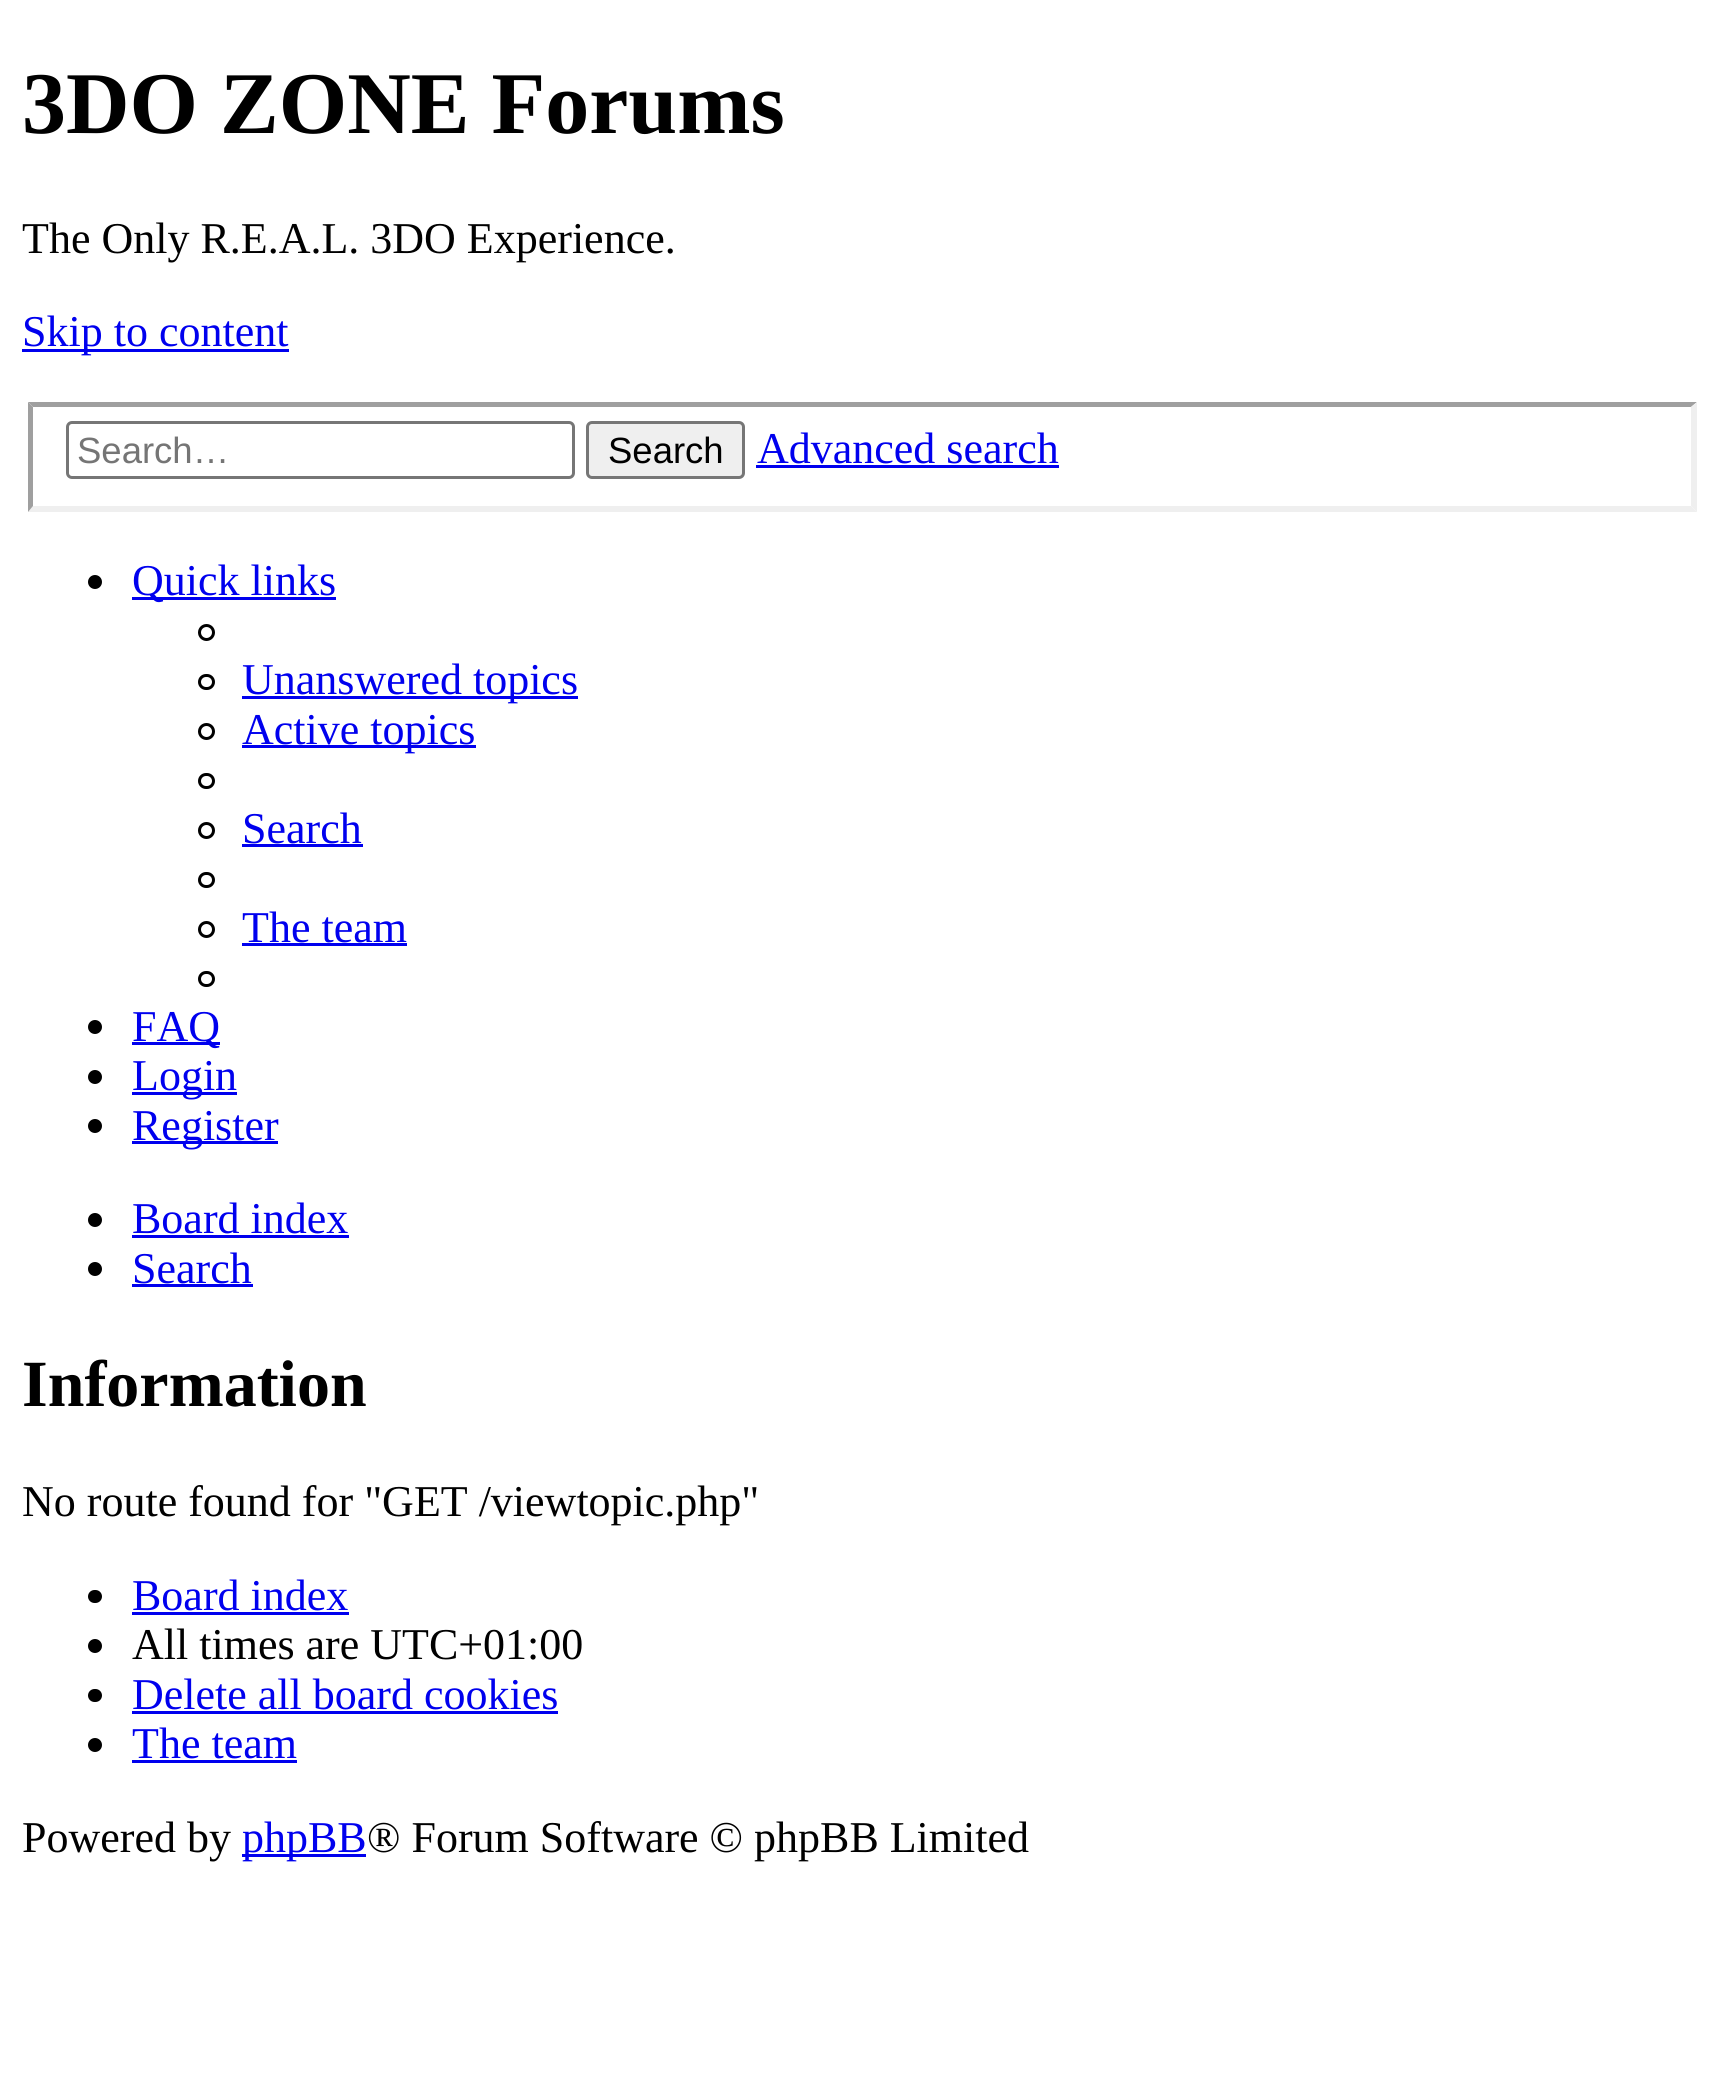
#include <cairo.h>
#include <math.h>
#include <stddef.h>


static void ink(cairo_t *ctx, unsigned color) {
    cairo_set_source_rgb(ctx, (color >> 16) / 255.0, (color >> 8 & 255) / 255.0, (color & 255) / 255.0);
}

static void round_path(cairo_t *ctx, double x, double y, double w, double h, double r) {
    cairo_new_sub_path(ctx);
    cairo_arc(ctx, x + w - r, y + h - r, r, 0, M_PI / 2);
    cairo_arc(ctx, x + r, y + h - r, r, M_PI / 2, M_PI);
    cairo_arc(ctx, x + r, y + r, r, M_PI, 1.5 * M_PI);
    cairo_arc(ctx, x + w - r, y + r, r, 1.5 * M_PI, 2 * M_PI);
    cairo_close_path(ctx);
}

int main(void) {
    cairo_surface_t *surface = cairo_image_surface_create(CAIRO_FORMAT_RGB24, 1722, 2096);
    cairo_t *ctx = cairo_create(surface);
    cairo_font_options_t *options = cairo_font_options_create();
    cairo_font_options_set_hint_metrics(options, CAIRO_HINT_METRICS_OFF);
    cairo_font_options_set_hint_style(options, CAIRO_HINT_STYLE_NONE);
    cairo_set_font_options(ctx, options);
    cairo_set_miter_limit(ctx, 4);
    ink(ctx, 0xFFFFFF);
    cairo_paint(ctx);
    cairo_select_font_face(ctx, "Liberation Serif", CAIRO_FONT_SLANT_NORMAL, CAIRO_FONT_WEIGHT_BOLD);
    cairo_set_font_size(ctx, 88);
    ink(ctx, 0x000000);
    cairo_move_to(ctx, 22, 133);
    cairo_show_text(ctx, "3DO ZONE Forums");
    cairo_select_font_face(ctx, "Liberation Serif", CAIRO_FONT_SLANT_NORMAL, CAIRO_FONT_WEIGHT_NORMAL);
    cairo_set_font_size(ctx, 44);
    cairo_move_to(ctx, 22, 253);
    cairo_show_text(ctx, "The Only R.E.A.L. 3DO Experience.");
    ink(ctx, 0x0000EE);
    cairo_rectangle(ctx, 22, 349, 267, 3);
    cairo_fill(ctx);
    cairo_move_to(ctx, 22, 346);
    cairo_show_text(ctx, "Skip to content");
    ink(ctx, 0x9F9F9F);
    cairo_new_path(ctx);
    cairo_move_to(ctx, 28, 402);
    cairo_line_to(ctx, 1697, 402);
    cairo_line_to(ctx, 1691, 407);
    cairo_line_to(ctx, 33, 407);
    cairo_close_path(ctx);
    cairo_fill(ctx);
    ink(ctx, 0xEFEFEF);
    cairo_new_path(ctx);
    cairo_move_to(ctx, 1697, 402);
    cairo_line_to(ctx, 1697, 512);
    cairo_line_to(ctx, 1691, 506);
    cairo_line_to(ctx, 1691, 407);
    cairo_close_path(ctx);
    cairo_fill(ctx);
    cairo_new_path(ctx);
    cairo_move_to(ctx, 1697, 512);
    cairo_line_to(ctx, 28, 512);
    cairo_line_to(ctx, 33, 506);
    cairo_line_to(ctx, 1691, 506);
    cairo_close_path(ctx);
    cairo_fill(ctx);
    ink(ctx, 0x9F9F9F);
    cairo_new_path(ctx);
    cairo_move_to(ctx, 28, 512);
    cairo_line_to(ctx, 28, 402);
    cairo_line_to(ctx, 33, 407);
    cairo_line_to(ctx, 33, 506);
    cairo_close_path(ctx);
    cairo_fill(ctx);
    round_path(ctx, 67.5, 422.5, 506, 55, 4.5);
    ink(ctx, 0x767676);
    cairo_set_line_width(ctx, 3);
    cairo_stroke(ctx);
    cairo_select_font_face(ctx, "Liberation Sans", CAIRO_FONT_SLANT_NORMAL, CAIRO_FONT_WEIGHT_NORMAL);
    cairo_set_font_size(ctx, 36.5);
    ink(ctx, 0x757575);
    cairo_move_to(ctx, 77, 463);
    cairo_show_text(ctx, "Search…");
    ink(ctx, 0xEFEFEF);
    round_path(ctx, 587.5, 422.5, 156, 55, 4.5);
    cairo_fill_preserve(ctx);
    ink(ctx, 0x767676);
    cairo_stroke(ctx);
    ink(ctx, 0x000000);
    cairo_move_to(ctx, 608, 463);
    cairo_show_text(ctx, "Search");
    cairo_select_font_face(ctx, "Liberation Serif", CAIRO_FONT_SLANT_NORMAL, CAIRO_FONT_WEIGHT_NORMAL);
    cairo_set_font_size(ctx, 44);
    ink(ctx, 0x0000EE);
    cairo_move_to(ctx, 757, 463);
    cairo_show_text(ctx, "Advanced search");
    cairo_rectangle(ctx, 756, 465, 303, 3);
    cairo_fill(ctx);
    ink(ctx, 0x000000);
    cairo_arc(ctx, 95, 582, 7, 0, 2 * M_PI);
    cairo_fill(ctx);
    ink(ctx, 0x0000EE);
    cairo_rectangle(ctx, 132, 597, 204, 3);
    cairo_fill(ctx);
    cairo_move_to(ctx, 132, 595);
    cairo_show_text(ctx, "Quick links");
    cairo_new_path(ctx);
    cairo_arc(ctx, 206.5, 632.5, 7, 0, 2 * M_PI);
    ink(ctx, 0x000000);
    cairo_stroke(ctx);
    round_path(ctx, 199.5, 675.5, 14, 13, 6.5);
    cairo_stroke(ctx);
    ink(ctx, 0x0000EE);
    cairo_rectangle(ctx, 242, 696, 336, 3);
    cairo_fill(ctx);
    cairo_move_to(ctx, 242, 694);
    cairo_show_text(ctx, "Unanswered topics");
    cairo_new_path(ctx);
    cairo_arc(ctx, 206.5, 731.5, 7, 0, 2 * M_PI);
    ink(ctx, 0x000000);
    cairo_stroke(ctx);
    ink(ctx, 0x0000EE);
    cairo_rectangle(ctx, 242, 745, 234, 3);
    cairo_fill(ctx);
    cairo_move_to(ctx, 242, 744);
    cairo_show_text(ctx, "Active topics");
    round_path(ctx, 199.5, 774.5, 14, 13, 6.5);
    ink(ctx, 0x000000);
    cairo_stroke(ctx);
    cairo_arc(ctx, 206.5, 830.5, 7, 0, 2 * M_PI);
    cairo_stroke(ctx);
    ink(ctx, 0x0000EE);
    cairo_move_to(ctx, 242, 843);
    cairo_show_text(ctx, "Search");
    cairo_rectangle(ctx, 242, 844, 121, 3);
    cairo_fill(ctx);
    round_path(ctx, 199.5, 873.5, 14, 13, 6.5);
    ink(ctx, 0x000000);
    cairo_stroke(ctx);
    cairo_arc(ctx, 206.5, 929.5, 7, 0, 2 * M_PI);
    cairo_stroke(ctx);
    ink(ctx, 0x0000EE);
    cairo_move_to(ctx, 242, 942);
    cairo_show_text(ctx, "The team");
    cairo_rectangle(ctx, 242, 943, 165, 3);
    cairo_fill(ctx);
    round_path(ctx, 199.5, 972.5, 14, 13, 6.5);
    ink(ctx, 0x000000);
    cairo_stroke(ctx);
    cairo_arc(ctx, 95, 1027, 7, 0, 2 * M_PI);
    cairo_fill(ctx);
    ink(ctx, 0x0000EE);
    cairo_rectangle(ctx, 132, 1042, 88, 3);
    cairo_fill(ctx);
    cairo_move_to(ctx, 132, 1041);
    cairo_show_text(ctx, "FAQ");
    ink(ctx, 0x000000);
    cairo_new_path(ctx);
    cairo_arc(ctx, 95, 1077, 7, 0, 2 * M_PI);
    cairo_fill(ctx);
    ink(ctx, 0x0000EE);
    cairo_rectangle(ctx, 132, 1092, 105, 3);
    cairo_fill(ctx);
    cairo_move_to(ctx, 132, 1090);
    cairo_show_text(ctx, "Login");
    ink(ctx, 0x000000);
    cairo_new_path(ctx);
    cairo_arc(ctx, 95, 1126, 7, 0, 2 * M_PI);
    cairo_fill(ctx);
    ink(ctx, 0x0000EE);
    cairo_rectangle(ctx, 132, 1141, 146, 3);
    cairo_fill(ctx);
    cairo_move_to(ctx, 132, 1140);
    cairo_show_text(ctx, "Register");
    ink(ctx, 0x000000);
    cairo_new_path(ctx);
    cairo_arc(ctx, 95, 1220, 7, 0, 2 * M_PI);
    cairo_fill(ctx);
    ink(ctx, 0x0000EE);
    cairo_move_to(ctx, 132, 1233);
    cairo_show_text(ctx, "Board index");
    cairo_rectangle(ctx, 132, 1235, 217, 3);
    cairo_fill(ctx);
    ink(ctx, 0x000000);
    cairo_arc(ctx, 95, 1269, 7, 0, 2 * M_PI);
    cairo_fill(ctx);
    ink(ctx, 0x0000EE);
    cairo_move_to(ctx, 132, 1283);
    cairo_show_text(ctx, "Search");
    cairo_rectangle(ctx, 132, 1284, 121, 3);
    cairo_fill(ctx);
    cairo_select_font_face(ctx, "Liberation Serif", CAIRO_FONT_SLANT_NORMAL, CAIRO_FONT_WEIGHT_BOLD);
    cairo_set_font_size(ctx, 66);
    ink(ctx, 0x000000);
    cairo_move_to(ctx, 22, 1406);
    cairo_show_text(ctx, "Information");
    cairo_select_font_face(ctx, "Liberation Serif", CAIRO_FONT_SLANT_NORMAL, CAIRO_FONT_WEIGHT_NORMAL);
    cairo_set_font_size(ctx, 44);
    cairo_move_to(ctx, 22, 1516);
    cairo_show_text(ctx, "No route found for \"GET /viewtopic.php\"");
    round_path(ctx, 88, 1590, 14, 13, 6.5);
    cairo_fill(ctx);
    ink(ctx, 0x0000EE);
    cairo_move_to(ctx, 132, 1610);
    cairo_show_text(ctx, "Board index");
    cairo_rectangle(ctx, 132, 1612, 217, 3);
    cairo_fill(ctx);
    ink(ctx, 0x000000);
    cairo_arc(ctx, 95, 1646, 7, 0, 2 * M_PI);
    cairo_fill(ctx);
    cairo_move_to(ctx, 132, 1659);
    cairo_show_text(ctx, "All times are UTC+01:00");
    round_path(ctx, 88, 1689, 14, 13, 6.5);
    cairo_fill(ctx);
    ink(ctx, 0x0000EE);
    cairo_move_to(ctx, 132, 1709);
    cairo_show_text(ctx, "Delete all board cookies");
    cairo_rectangle(ctx, 132, 1711, 426, 3);
    cairo_fill(ctx);
    ink(ctx, 0x000000);
    cairo_arc(ctx, 95, 1745, 7, 0, 2 * M_PI);
    cairo_fill(ctx);
    ink(ctx, 0x0000EE);
    cairo_move_to(ctx, 132, 1758);
    cairo_show_text(ctx, "The team");
    cairo_rectangle(ctx, 132, 1760, 165, 3);
    cairo_fill(ctx);
    ink(ctx, 0x000000);
    cairo_move_to(ctx, 22, 1852);
    cairo_show_text(ctx, "Powered by");
    ink(ctx, 0x0000EE);
    cairo_rectangle(ctx, 242, 1854, 124, 3);
    cairo_fill(ctx);
    cairo_move_to(ctx, 242, 1852);
    cairo_show_text(ctx, "phpBB");
    ink(ctx, 0x000000);
    cairo_move_to(ctx, 367, 1852);
    cairo_show_text(ctx, "® Forum Software © phpBB Limited");
    cairo_surface_write_to_png(surface, "image.png");
    cairo_font_options_destroy(options);
    cairo_destroy(ctx);
    cairo_surface_destroy(surface);
    return 0;
}
